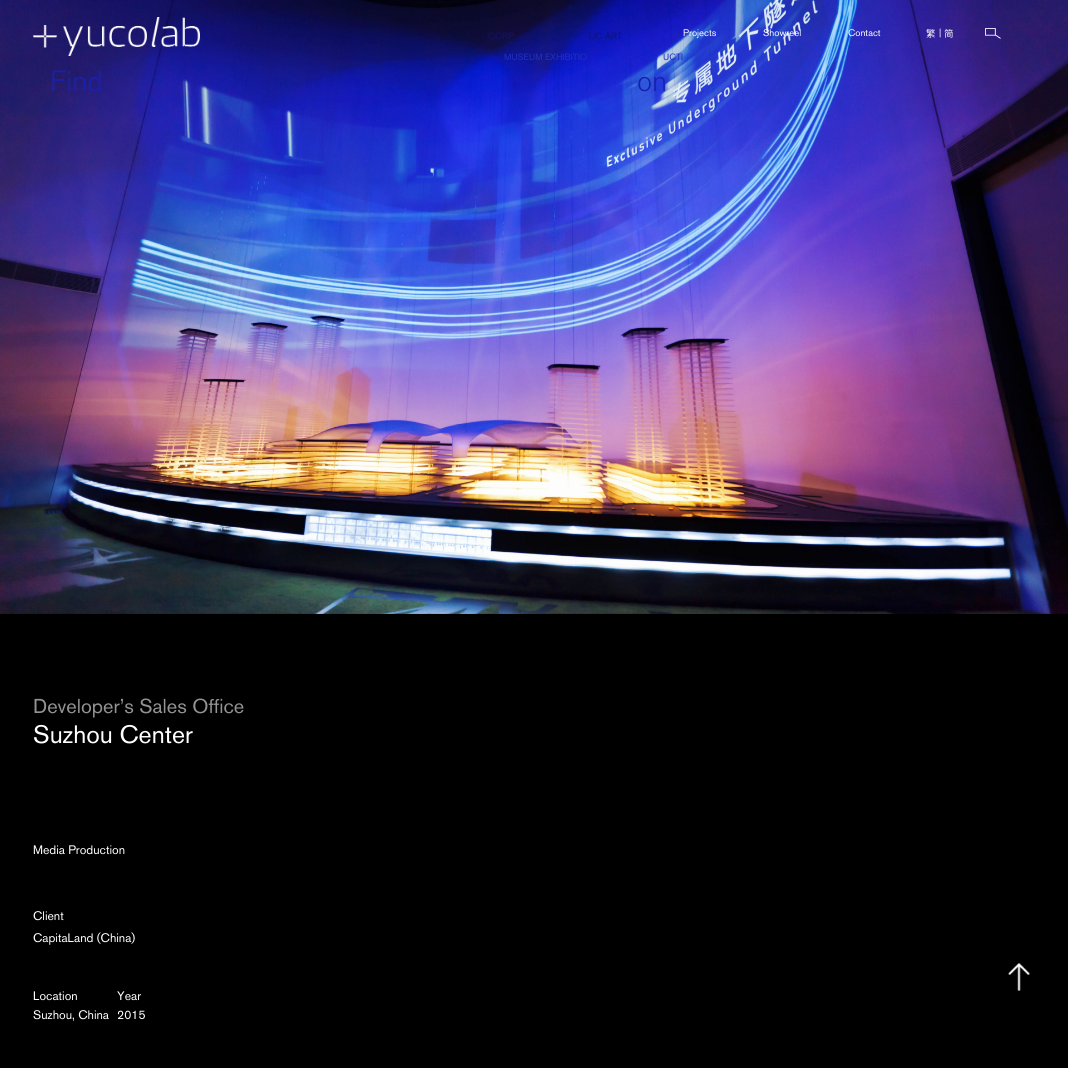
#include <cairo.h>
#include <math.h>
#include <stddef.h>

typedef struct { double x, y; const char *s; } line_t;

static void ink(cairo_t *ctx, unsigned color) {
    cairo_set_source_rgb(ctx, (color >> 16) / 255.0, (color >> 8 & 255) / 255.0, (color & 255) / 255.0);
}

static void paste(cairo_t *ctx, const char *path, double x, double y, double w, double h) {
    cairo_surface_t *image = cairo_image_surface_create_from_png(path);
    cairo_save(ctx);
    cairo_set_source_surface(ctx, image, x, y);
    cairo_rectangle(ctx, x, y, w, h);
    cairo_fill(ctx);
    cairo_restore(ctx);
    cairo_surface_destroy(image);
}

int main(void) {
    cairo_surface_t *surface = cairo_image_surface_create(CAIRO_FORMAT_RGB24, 1068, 1068);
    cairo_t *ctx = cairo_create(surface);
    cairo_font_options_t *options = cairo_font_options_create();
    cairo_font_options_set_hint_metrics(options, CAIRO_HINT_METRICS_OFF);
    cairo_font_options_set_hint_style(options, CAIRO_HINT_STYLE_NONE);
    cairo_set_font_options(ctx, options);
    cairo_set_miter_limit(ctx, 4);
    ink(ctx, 0x000000);
    cairo_paint(ctx);
    paste(ctx, "media/4.png", 0, 0, 1068, 614);
    cairo_select_font_face(ctx, "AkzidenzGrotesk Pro", CAIRO_FONT_SLANT_NORMAL, CAIRO_FONT_WEIGHT_NORMAL);
    cairo_set_font_size(ctx, 9);
    ink(ctx, 0x0E117A);
    cairo_move_to(ctx, 488, 39);
    cairo_show_text(ctx, "CORP");
    cairo_move_to(ctx, 589, 39);
    cairo_show_text(ctx, "LIC ART");
    ink(ctx, 0x222FBC);
    cairo_move_to(ctx, 504, 60);
    cairo_show_text(ctx, "MUSEUM EXHIBITIO");
    cairo_move_to(ctx, 663, 60);
    cairo_show_text(ctx, "UCTI");
    paste(ctx, "media/1.png", 33, 17, 167, 39);
    cairo_set_font_size(ctx, 9.5);
    ink(ctx, 0xFFFFFF);
    {
        static const line_t items[] = {
            {683, 36, "Projects"},
            {763, 36, "Showreel"},
            {848, 36, "Contact"},
        };
        for (size_t i = 0; i < sizeof items / sizeof *items; i++) {
            cairo_move_to(ctx, items[i].x, items[i].y);
            cairo_show_text(ctx, items[i].s);
        }
    }
    cairo_select_font_face(ctx, "Noto Sans TC", CAIRO_FONT_SLANT_NORMAL, CAIRO_FONT_WEIGHT_NORMAL);
    cairo_move_to(ctx, 926, 37);
    cairo_show_text(ctx, "繁");
    cairo_select_font_face(ctx, "AkzidenzGrotesk Pro", CAIRO_FONT_SLANT_NORMAL, CAIRO_FONT_WEIGHT_NORMAL);
    cairo_move_to(ctx, 939, 36);
    cairo_show_text(ctx, "|");
    cairo_select_font_face(ctx, "Noto Sans SC", CAIRO_FONT_SLANT_NORMAL, CAIRO_FONT_WEIGHT_NORMAL);
    cairo_move_to(ctx, 944, 37);
    cairo_show_text(ctx, "简");
    paste(ctx, "media/2.png", 985, 28, 16, 11);
    cairo_select_font_face(ctx, "AkzidenzGrotesk Pro Light", CAIRO_FONT_SLANT_NORMAL, CAIRO_FONT_WEIGHT_NORMAL);
    cairo_set_font_size(ctx, 29);
    ink(ctx, 0x1820B0);
    cairo_move_to(ctx, 50, 91);
    cairo_show_text(ctx, "Find");
    cairo_move_to(ctx, 637, 91);
    cairo_show_text(ctx, "on");
    paste(ctx, "media/3.png", 1008, 963, 22, 28);
    cairo_select_font_face(ctx, "AkzidenzGrotesk Pro", CAIRO_FONT_SLANT_NORMAL, CAIRO_FONT_WEIGHT_NORMAL);
    cairo_set_font_size(ctx, 20);
    ink(ctx, 0x939393);
    cairo_move_to(ctx, 33, 713);
    cairo_show_text(ctx, "Developer’s Sales Office");
    cairo_set_font_size(ctx, 25);
    ink(ctx, 0xFFFFFF);
    cairo_move_to(ctx, 33, 743);
    cairo_show_text(ctx, "Suzhou Center");
    cairo_set_font_size(ctx, 12.25);
    {
        static const line_t items[] = {
            {33, 854, "Media Production"},
            {33, 920, "Client"},
            {33, 942, "CapitaLand (China)"},
            {33, 1000, "Location"},
            {33, 1019, "Suzhou, China"},
            {117, 1000, "Year"},
            {117, 1019, "2015"},
        };
        for (size_t i = 0; i < sizeof items / sizeof *items; i++) {
            cairo_move_to(ctx, items[i].x, items[i].y);
            cairo_show_text(ctx, items[i].s);
        }
    }
    cairo_surface_write_to_png(surface, "image.png");
    cairo_font_options_destroy(options);
    cairo_destroy(ctx);
    cairo_surface_destroy(surface);
    return 0;
}
